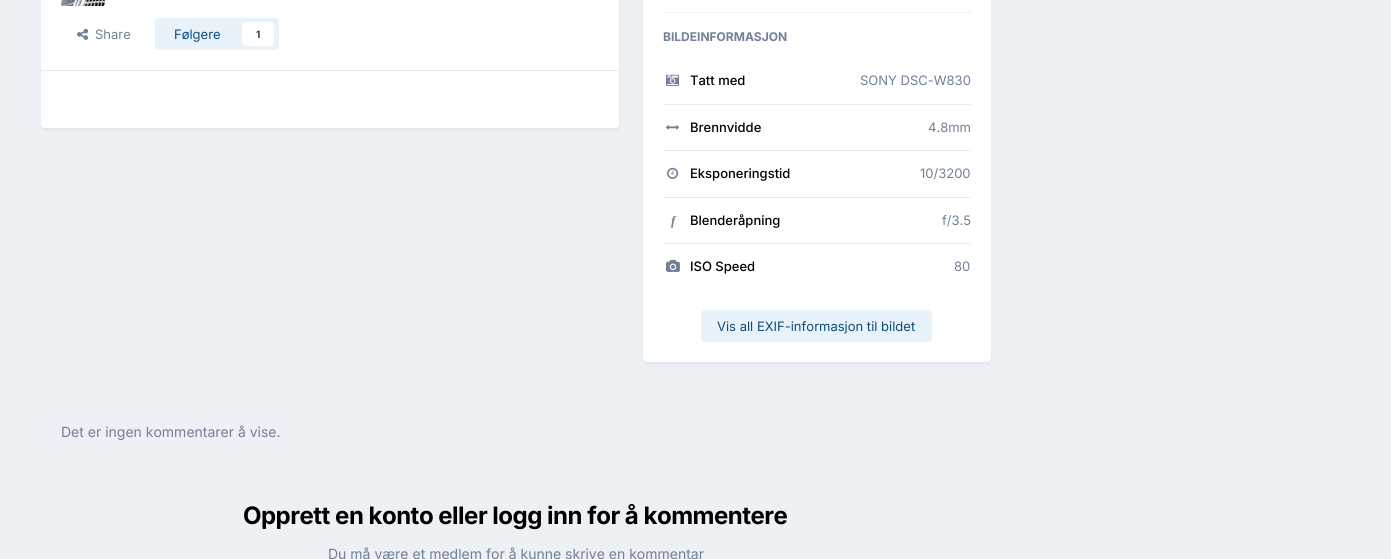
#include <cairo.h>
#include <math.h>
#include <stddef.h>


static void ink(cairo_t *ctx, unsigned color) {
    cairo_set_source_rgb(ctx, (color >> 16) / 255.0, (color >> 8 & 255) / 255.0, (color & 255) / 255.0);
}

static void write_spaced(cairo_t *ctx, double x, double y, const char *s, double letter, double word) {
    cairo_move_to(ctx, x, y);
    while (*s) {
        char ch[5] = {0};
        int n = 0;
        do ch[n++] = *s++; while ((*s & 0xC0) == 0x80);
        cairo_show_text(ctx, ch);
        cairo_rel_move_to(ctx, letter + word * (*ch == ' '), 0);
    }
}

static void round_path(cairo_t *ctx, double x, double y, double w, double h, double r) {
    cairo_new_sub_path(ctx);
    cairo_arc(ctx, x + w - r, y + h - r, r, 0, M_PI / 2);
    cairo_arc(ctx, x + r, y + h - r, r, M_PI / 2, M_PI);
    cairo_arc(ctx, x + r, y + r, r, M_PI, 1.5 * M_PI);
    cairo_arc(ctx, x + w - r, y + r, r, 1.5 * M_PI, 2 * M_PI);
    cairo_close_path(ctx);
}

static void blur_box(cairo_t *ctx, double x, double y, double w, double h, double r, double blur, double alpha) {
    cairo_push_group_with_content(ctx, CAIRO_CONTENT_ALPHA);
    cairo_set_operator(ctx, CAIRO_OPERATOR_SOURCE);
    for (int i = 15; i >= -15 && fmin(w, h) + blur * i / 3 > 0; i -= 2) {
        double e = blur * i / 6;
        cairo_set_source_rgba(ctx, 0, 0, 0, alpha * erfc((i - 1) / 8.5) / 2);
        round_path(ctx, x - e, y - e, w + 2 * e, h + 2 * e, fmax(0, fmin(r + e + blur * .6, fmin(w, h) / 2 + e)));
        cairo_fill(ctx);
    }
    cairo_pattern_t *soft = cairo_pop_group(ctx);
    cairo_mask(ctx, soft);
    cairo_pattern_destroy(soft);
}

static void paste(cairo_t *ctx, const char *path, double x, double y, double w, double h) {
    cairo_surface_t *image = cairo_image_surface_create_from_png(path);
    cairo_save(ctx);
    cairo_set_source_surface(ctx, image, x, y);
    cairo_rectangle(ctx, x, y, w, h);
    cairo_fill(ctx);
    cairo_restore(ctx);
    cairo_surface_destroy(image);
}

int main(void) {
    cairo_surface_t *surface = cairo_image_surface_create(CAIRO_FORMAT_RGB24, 1391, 559);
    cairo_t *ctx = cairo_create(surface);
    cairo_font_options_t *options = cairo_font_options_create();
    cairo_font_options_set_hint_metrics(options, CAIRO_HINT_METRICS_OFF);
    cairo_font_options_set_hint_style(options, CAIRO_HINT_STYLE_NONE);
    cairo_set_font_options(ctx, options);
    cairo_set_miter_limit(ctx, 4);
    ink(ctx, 0xEDF0F4);
    cairo_paint(ctx);
    ink(ctx, 0x2D3748);
    blur_box(ctx, 42, -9, 576, 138, 3, 2, 0.1);
    ink(ctx, 0xFFFFFF);
    round_path(ctx, 41, -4, 578, 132, 4);
    cairo_fill(ctx);
    paste(ctx, "media/1.png", 61, 0, 44, 6);
    paste(ctx, "media/2.png", 77, 28, 12, 12);
    cairo_select_font_face(ctx, "Inter", CAIRO_FONT_SLANT_NORMAL, CAIRO_FONT_WEIGHT_NORMAL);
    cairo_set_font_size(ctx, 13);
    ink(ctx, 0x718096);
    cairo_move_to(ctx, 95, 39);
    cairo_show_text(ctx, "Share");
    ink(ctx, 0xE8F2FA);
    round_path(ctx, 155, 18, 124, 32, 4);
    cairo_fill(ctx);
    ink(ctx, 0x0E4C79);
    cairo_move_to(ctx, 174, 39);
    cairo_show_text(ctx, "Følgere");
    ink(ctx, 0xFFFFFF);
    round_path(ctx, 242, 22, 32, 24, 4);
    cairo_fill(ctx);
    cairo_select_font_face(ctx, "Inter", CAIRO_FONT_SLANT_NORMAL, CAIRO_FONT_WEIGHT_BOLD);
    cairo_set_font_size(ctx, 10);
    ink(ctx, 0x353C41);
    cairo_move_to(ctx, 256, 38);
    cairo_show_text(ctx, "1");
    ink(ctx, 0xEBECEC);
    cairo_rectangle(ctx, 41, 70, 578, 1);
    cairo_fill(ctx);
    ink(ctx, 0x2D3748);
    blur_box(ctx, 644, -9, 346, 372, 3, 2, 0.1);
    ink(ctx, 0xFFFFFF);
    round_path(ctx, 643, -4, 348, 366, 4);
    cairo_fill(ctx);
    ink(ctx, 0xEFEFF0);
    cairo_rectangle(ctx, 663, 12, 308, 1);
    cairo_fill(ctx);
    cairo_set_font_size(ctx, 12);
    ink(ctx, 0x718096);
    cairo_move_to(ctx, 663, 41);
    cairo_show_text(ctx, "BILDEINFORMASJON");
    ink(ctx, 0xEAEBED);
    cairo_rectangle(ctx, 663, 104, 308, 1);
    cairo_fill(ctx);
    paste(ctx, "media/3.png", 666, 74, 13, 12);
    cairo_select_font_face(ctx, "Inter Medium", CAIRO_FONT_SLANT_NORMAL, CAIRO_FONT_WEIGHT_NORMAL);
    cairo_set_font_size(ctx, 13);
    ink(ctx, 0x000000);
    cairo_move_to(ctx, 690, 85);
    cairo_show_text(ctx, "Tatt med");
    cairo_select_font_face(ctx, "Inter", CAIRO_FONT_SLANT_NORMAL, CAIRO_FONT_WEIGHT_NORMAL);
    ink(ctx, 0x718096);
    cairo_move_to(ctx, 860, 85);
    cairo_show_text(ctx, "SONY DSC-W830");
    ink(ctx, 0xEAEBED);
    cairo_rectangle(ctx, 663, 150, 308, 1);
    cairo_fill(ctx);
    paste(ctx, "media/4.png", 666, 125, 13, 5);
    cairo_select_font_face(ctx, "Inter Medium", CAIRO_FONT_SLANT_NORMAL, CAIRO_FONT_WEIGHT_NORMAL);
    ink(ctx, 0x000000);
    cairo_move_to(ctx, 690, 132);
    cairo_show_text(ctx, "Brennvidde");
    cairo_select_font_face(ctx, "Inter", CAIRO_FONT_SLANT_NORMAL, CAIRO_FONT_WEIGHT_NORMAL);
    ink(ctx, 0x718096);
    cairo_move_to(ctx, 928, 132);
    cairo_show_text(ctx, "4.8mm");
    ink(ctx, 0xEAEBED);
    cairo_rectangle(ctx, 663, 197, 308, 1);
    cairo_fill(ctx);
    paste(ctx, "media/5.png", 667, 167, 12, 12);
    cairo_select_font_face(ctx, "Inter Medium", CAIRO_FONT_SLANT_NORMAL, CAIRO_FONT_WEIGHT_NORMAL);
    ink(ctx, 0x000000);
    cairo_move_to(ctx, 690, 178);
    cairo_show_text(ctx, "Eksponeringstid");
    cairo_select_font_face(ctx, "Inter", CAIRO_FONT_SLANT_NORMAL, CAIRO_FONT_WEIGHT_NORMAL);
    ink(ctx, 0x718096);
    cairo_move_to(ctx, 920, 178);
    cairo_show_text(ctx, "10/3200");
    ink(ctx, 0xEAEBED);
    cairo_rectangle(ctx, 663, 243, 308, 1);
    cairo_fill(ctx);
    cairo_select_font_face(ctx, "Liberation Serif", CAIRO_FONT_SLANT_ITALIC, CAIRO_FONT_WEIGHT_BOLD);
    ink(ctx, 0x718096);
    cairo_move_to(ctx, 671, 225);
    cairo_show_text(ctx, "f");
    cairo_select_font_face(ctx, "Inter Medium", CAIRO_FONT_SLANT_NORMAL, CAIRO_FONT_WEIGHT_NORMAL);
    ink(ctx, 0x000000);
    cairo_move_to(ctx, 690, 225);
    cairo_show_text(ctx, "Blenderåpning");
    cairo_select_font_face(ctx, "Inter", CAIRO_FONT_SLANT_NORMAL, CAIRO_FONT_WEIGHT_NORMAL);
    ink(ctx, 0x718096);
    cairo_move_to(ctx, 942, 225);
    cairo_show_text(ctx, "f/3.5");
    paste(ctx, "media/6.png", 666, 259, 14, 13);
    cairo_select_font_face(ctx, "Inter Medium", CAIRO_FONT_SLANT_NORMAL, CAIRO_FONT_WEIGHT_NORMAL);
    ink(ctx, 0x000000);
    cairo_move_to(ctx, 690, 271);
    cairo_show_text(ctx, "ISO Speed");
    cairo_select_font_face(ctx, "Inter", CAIRO_FONT_SLANT_NORMAL, CAIRO_FONT_WEIGHT_NORMAL);
    ink(ctx, 0x718096);
    cairo_move_to(ctx, 954, 271);
    cairo_show_text(ctx, "80");
    ink(ctx, 0xE8F2FA);
    round_path(ctx, 701, 310, 231, 32, 4);
    cairo_fill(ctx);
    ink(ctx, 0x0E4C79);
    cairo_move_to(ctx, 717, 331);
    cairo_show_text(ctx, "Vis all EXIF-informasjon til bildet");
    cairo_set_font_size(ctx, 14);
    ink(ctx, 0x718096);
    cairo_move_to(ctx, 61, 437);
    cairo_show_text(ctx, "Det er ingen kommentarer å vise.");
    cairo_select_font_face(ctx, "Inter", CAIRO_FONT_SLANT_NORMAL, CAIRO_FONT_WEIGHT_BOLD);
    cairo_set_font_size(ctx, 24);
    ink(ctx, 0x000000);
    write_spaced(ctx, 243, 524, "Opprett en konto eller logg inn for å kommentere", -0.5, 0);
    cairo_select_font_face(ctx, "Inter", CAIRO_FONT_SLANT_NORMAL, CAIRO_FONT_WEIGHT_NORMAL);
    cairo_set_font_size(ctx, 14);
    ink(ctx, 0x718096);
    cairo_move_to(ctx, 328, 559);
    cairo_show_text(ctx, "Du må være et medlem for å kunne skrive en kommentar");
    cairo_surface_write_to_png(surface, "image.png");
    cairo_font_options_destroy(options);
    cairo_destroy(ctx);
    cairo_surface_destroy(surface);
    return 0;
}
